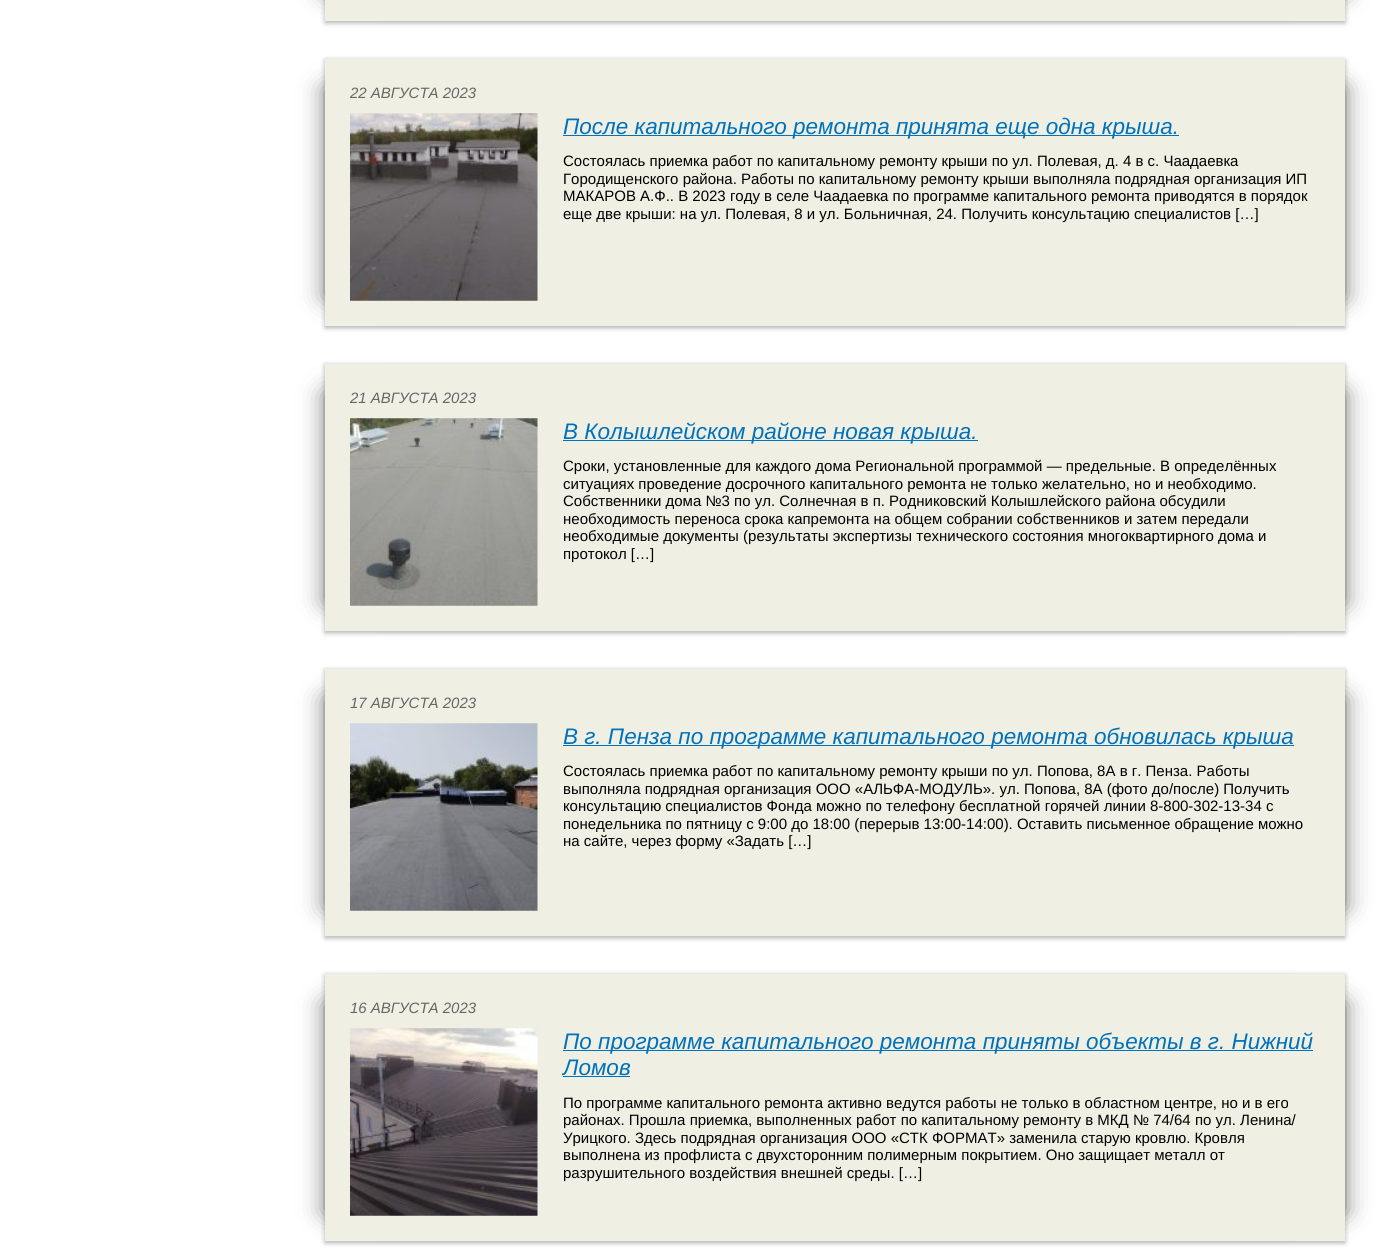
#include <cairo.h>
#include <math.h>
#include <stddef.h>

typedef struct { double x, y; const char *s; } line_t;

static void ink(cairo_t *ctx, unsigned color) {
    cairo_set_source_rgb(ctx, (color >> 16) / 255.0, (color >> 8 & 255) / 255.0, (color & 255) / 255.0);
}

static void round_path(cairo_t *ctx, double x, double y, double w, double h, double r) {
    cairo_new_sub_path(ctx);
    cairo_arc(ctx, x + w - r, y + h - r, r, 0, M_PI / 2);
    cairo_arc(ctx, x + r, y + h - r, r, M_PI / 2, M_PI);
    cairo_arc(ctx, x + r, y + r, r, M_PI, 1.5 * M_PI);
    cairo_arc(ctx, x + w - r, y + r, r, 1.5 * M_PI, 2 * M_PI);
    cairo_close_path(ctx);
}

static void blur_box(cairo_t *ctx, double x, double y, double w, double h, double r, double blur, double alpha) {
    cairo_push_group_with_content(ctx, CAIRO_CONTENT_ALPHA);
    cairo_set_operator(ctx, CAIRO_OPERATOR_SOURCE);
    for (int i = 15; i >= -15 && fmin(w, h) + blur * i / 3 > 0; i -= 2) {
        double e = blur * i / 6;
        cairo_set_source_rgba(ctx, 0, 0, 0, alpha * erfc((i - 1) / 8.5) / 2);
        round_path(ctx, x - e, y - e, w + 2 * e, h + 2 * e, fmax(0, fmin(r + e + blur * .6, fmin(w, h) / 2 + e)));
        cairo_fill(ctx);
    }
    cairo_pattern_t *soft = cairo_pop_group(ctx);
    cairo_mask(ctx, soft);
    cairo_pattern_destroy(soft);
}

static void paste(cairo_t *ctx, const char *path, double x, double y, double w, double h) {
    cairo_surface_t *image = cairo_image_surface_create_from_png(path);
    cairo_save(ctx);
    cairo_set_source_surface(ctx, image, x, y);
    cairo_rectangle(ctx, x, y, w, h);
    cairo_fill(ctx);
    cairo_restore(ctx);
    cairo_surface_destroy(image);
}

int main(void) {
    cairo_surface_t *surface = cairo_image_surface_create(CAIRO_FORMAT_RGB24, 1382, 1249);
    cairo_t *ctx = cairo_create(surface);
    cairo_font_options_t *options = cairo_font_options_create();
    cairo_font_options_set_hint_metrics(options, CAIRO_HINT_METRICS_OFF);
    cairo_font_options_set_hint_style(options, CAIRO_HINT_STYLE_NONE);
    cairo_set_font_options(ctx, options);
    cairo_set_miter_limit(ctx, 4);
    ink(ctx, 0xFFFFFF);
    cairo_paint(ctx);
    ink(ctx, 0x000000);
    blur_box(ctx, 383, -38, 962, 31, 0, 12.5, 0.5);
    blur_box(ctx, 325, -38, 963, 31, 0, 12.5, 0.5);
    blur_box(ctx, 325, -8, 1020, 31, 0, 2.5, 0.3);
    ink(ctx, 0xEFEFE4);
    cairo_rectangle(ctx, 325, 0, 1020, 21);
    cairo_fill(ctx);
    ink(ctx, 0x000000);
    blur_box(ctx, 383, 88, 962, 210, 0, 12.5, 0.5);
    blur_box(ctx, 325, 88, 963, 210, 0, 12.5, 0.5);
    blur_box(ctx, 325, 60, 1020, 268, 0, 2.5, 0.3);
    ink(ctx, 0xEFEFE4);
    cairo_rectangle(ctx, 325, 59, 1020, 267);
    cairo_fill(ctx);
    cairo_select_font_face(ctx, "Liberation Sans", CAIRO_FONT_SLANT_ITALIC, CAIRO_FONT_WEIGHT_NORMAL);
    cairo_set_font_size(ctx, 15);
    ink(ctx, 0x666666);
    cairo_move_to(ctx, 350, 98);
    cairo_show_text(ctx, "22 АВГУСТА 2023");
    paste(ctx, "media/1.png", 350, 113, 188, 188);
    ink(ctx, 0x0072BC);
    cairo_rectangle(ctx, 563, 135, 616, 1);
    cairo_fill(ctx);
    cairo_set_font_size(ctx, 22.5);
    cairo_move_to(ctx, 563, 134);
    cairo_show_text(ctx, "После капитального ремонта принята еще одна крыша.");
    cairo_select_font_face(ctx, "Liberation Sans", CAIRO_FONT_SLANT_NORMAL, CAIRO_FONT_WEIGHT_NORMAL);
    cairo_set_font_size(ctx, 15);
    ink(ctx, 0x000000);
    {
        static const line_t items[] = {
            {563, 166, "Состоялась приемка работ по капитальному ремонту крыши по ул. Полевая, д. 4 в с. Чаадаевка"},
            {563, 184, "Городищенского района. Работы по капитальному ремонту крыши выполняла подрядная организация ИП"},
            {563, 201, "МАКАРОВ А.Ф.. В 2023 году в селе Чаадаевка по программе капитального ремонта приводятся в порядок"},
            {563, 219, "еще две крыши: на ул. Полевая, 8 и ул. Больничная, 24. Получить консультацию специалистов […]"},
        };
        for (size_t i = 0; i < sizeof items / sizeof *items; i++) {
            cairo_move_to(ctx, items[i].x, items[i].y);
            cairo_show_text(ctx, items[i].s);
        }
    }
    ink(ctx, 0x000000);
    blur_box(ctx, 383, 393, 962, 210, 0, 12.5, 0.5);
    blur_box(ctx, 325, 393, 963, 210, 0, 12.5, 0.5);
    blur_box(ctx, 325, 365, 1020, 268, 0, 2.5, 0.3);
    ink(ctx, 0xEFEFE4);
    cairo_rectangle(ctx, 325, 364, 1020, 267);
    cairo_fill(ctx);
    cairo_select_font_face(ctx, "Liberation Sans", CAIRO_FONT_SLANT_ITALIC, CAIRO_FONT_WEIGHT_NORMAL);
    ink(ctx, 0x666666);
    cairo_move_to(ctx, 350, 403);
    cairo_show_text(ctx, "21 АВГУСТА 2023");
    paste(ctx, "media/2.png", 350, 418, 188, 188);
    ink(ctx, 0x0072BC);
    cairo_rectangle(ctx, 563, 440, 415, 1);
    cairo_fill(ctx);
    cairo_set_font_size(ctx, 22.5);
    cairo_move_to(ctx, 563, 439);
    cairo_show_text(ctx, "В Колышлейском районе новая крыша.");
    cairo_select_font_face(ctx, "Liberation Sans", CAIRO_FONT_SLANT_NORMAL, CAIRO_FONT_WEIGHT_NORMAL);
    cairo_set_font_size(ctx, 15);
    ink(ctx, 0x000000);
    {
        static const line_t items[] = {
            {563, 471, "Сроки, установленные для каждого дома Региональной программой — предельные. В определённых"},
            {563, 489, "ситуациях проведение досрочного капитального ремонта не только желательно, но и необходимо."},
            {563, 506, "Собственники дома №3 по ул. Солнечная в п. Родниковский Колышлейского района обсудили"},
            {563, 524, "необходимость переноса срока капремонта на общем собрании собственников и затем передали"},
            {563, 541, "необходимые документы (результаты экспертизы технического состояния многоквартирного дома и"},
            {563, 559, "протокол […]"},
        };
        for (size_t i = 0; i < sizeof items / sizeof *items; i++) {
            cairo_move_to(ctx, items[i].x, items[i].y);
            cairo_show_text(ctx, items[i].s);
        }
    }
    ink(ctx, 0x000000);
    blur_box(ctx, 383, 698, 962, 210, 0, 12.5, 0.5);
    blur_box(ctx, 325, 698, 963, 210, 0, 12.5, 0.5);
    blur_box(ctx, 325, 670, 1020, 268, 0, 2.5, 0.3);
    ink(ctx, 0xEFEFE4);
    cairo_rectangle(ctx, 325, 669, 1020, 267);
    cairo_fill(ctx);
    cairo_select_font_face(ctx, "Liberation Sans", CAIRO_FONT_SLANT_ITALIC, CAIRO_FONT_WEIGHT_NORMAL);
    ink(ctx, 0x666666);
    cairo_move_to(ctx, 350, 708);
    cairo_show_text(ctx, "17 АВГУСТА 2023");
    paste(ctx, "media/3.png", 350, 723, 188, 188);
    ink(ctx, 0x0072BC);
    cairo_rectangle(ctx, 563, 745, 731, 1);
    cairo_fill(ctx);
    cairo_set_font_size(ctx, 22.5);
    cairo_move_to(ctx, 563, 744);
    cairo_show_text(ctx, "В г. Пенза по программе капитального ремонта обновилась крыша");
    cairo_select_font_face(ctx, "Liberation Sans", CAIRO_FONT_SLANT_NORMAL, CAIRO_FONT_WEIGHT_NORMAL);
    cairo_set_font_size(ctx, 15);
    ink(ctx, 0x000000);
    {
        static const line_t items[] = {
            {563, 776, "Состоялась приемка работ по капитальному ремонту крыши по ул. Попова, 8А в г. Пенза. Работы"},
            {563, 794, "выполняла подрядная организация ООО «АЛЬФА-МОДУЛЬ». ул. Попова, 8А (фото до/после) Получить"},
            {563, 811, "консультацию специалистов Фонда можно по телефону бесплатной горячей линии 8-800-302-13-34 с"},
            {563, 829, "понедельника по пятницу с 9:00 до 18:00 (перерыв 13:00-14:00). Оставить письменное обращение можно"},
            {563, 846, "на сайте, через форму «Задать […]"},
        };
        for (size_t i = 0; i < sizeof items / sizeof *items; i++) {
            cairo_move_to(ctx, items[i].x, items[i].y);
            cairo_show_text(ctx, items[i].s);
        }
    }
    ink(ctx, 0x000000);
    blur_box(ctx, 383, 1003, 962, 210, 0, 12.5, 0.5);
    blur_box(ctx, 325, 1003, 963, 210, 0, 12.5, 0.5);
    blur_box(ctx, 325, 975, 1020, 268, 0, 2.5, 0.3);
    ink(ctx, 0xEFEFE4);
    cairo_rectangle(ctx, 325, 974, 1020, 267);
    cairo_fill(ctx);
    cairo_select_font_face(ctx, "Liberation Sans", CAIRO_FONT_SLANT_ITALIC, CAIRO_FONT_WEIGHT_NORMAL);
    ink(ctx, 0x666666);
    cairo_move_to(ctx, 350, 1013);
    cairo_show_text(ctx, "16 АВГУСТА 2023");
    paste(ctx, "media/4.png", 350, 1028, 188, 188);
    ink(ctx, 0x0072BC);
    cairo_rectangle(ctx, 563, 1050, 750, 1);
    cairo_fill(ctx);
    cairo_set_font_size(ctx, 22.5);
    cairo_move_to(ctx, 563, 1049);
    cairo_show_text(ctx, "По программе капитального ремонта приняты объекты в г. Нижний");
    cairo_move_to(ctx, 563, 1075);
    cairo_show_text(ctx, "Ломов");
    cairo_rectangle(ctx, 563, 1076, 67, 1);
    cairo_fill(ctx);
    cairo_select_font_face(ctx, "Liberation Sans", CAIRO_FONT_SLANT_NORMAL, CAIRO_FONT_WEIGHT_NORMAL);
    cairo_set_font_size(ctx, 15);
    ink(ctx, 0x000000);
    {
        static const line_t items[] = {
            {563, 1108, "По программе капитального ремонта активно ведутся работы не только в областном центре, но и в его"},
            {563, 1125, "районах. Прошла приемка, выполненных работ по капитальному ремонту в МКД № 74/64 по ул. Ленина/"},
            {563, 1143, "Урицкого. Здесь подрядная организация ООО «СТК ФОРМАТ» заменила старую кровлю. Кровля"},
            {563, 1160, "выполнена из профлиста с двухсторонним полимерным покрытием. Оно защищает металл от"},
            {563, 1178, "разрушительного воздействия внешней среды. […]"},
        };
        for (size_t i = 0; i < sizeof items / sizeof *items; i++) {
            cairo_move_to(ctx, items[i].x, items[i].y);
            cairo_show_text(ctx, items[i].s);
        }
    }
    cairo_surface_write_to_png(surface, "image.png");
    cairo_font_options_destroy(options);
    cairo_destroy(ctx);
    cairo_surface_destroy(surface);
    return 0;
}
